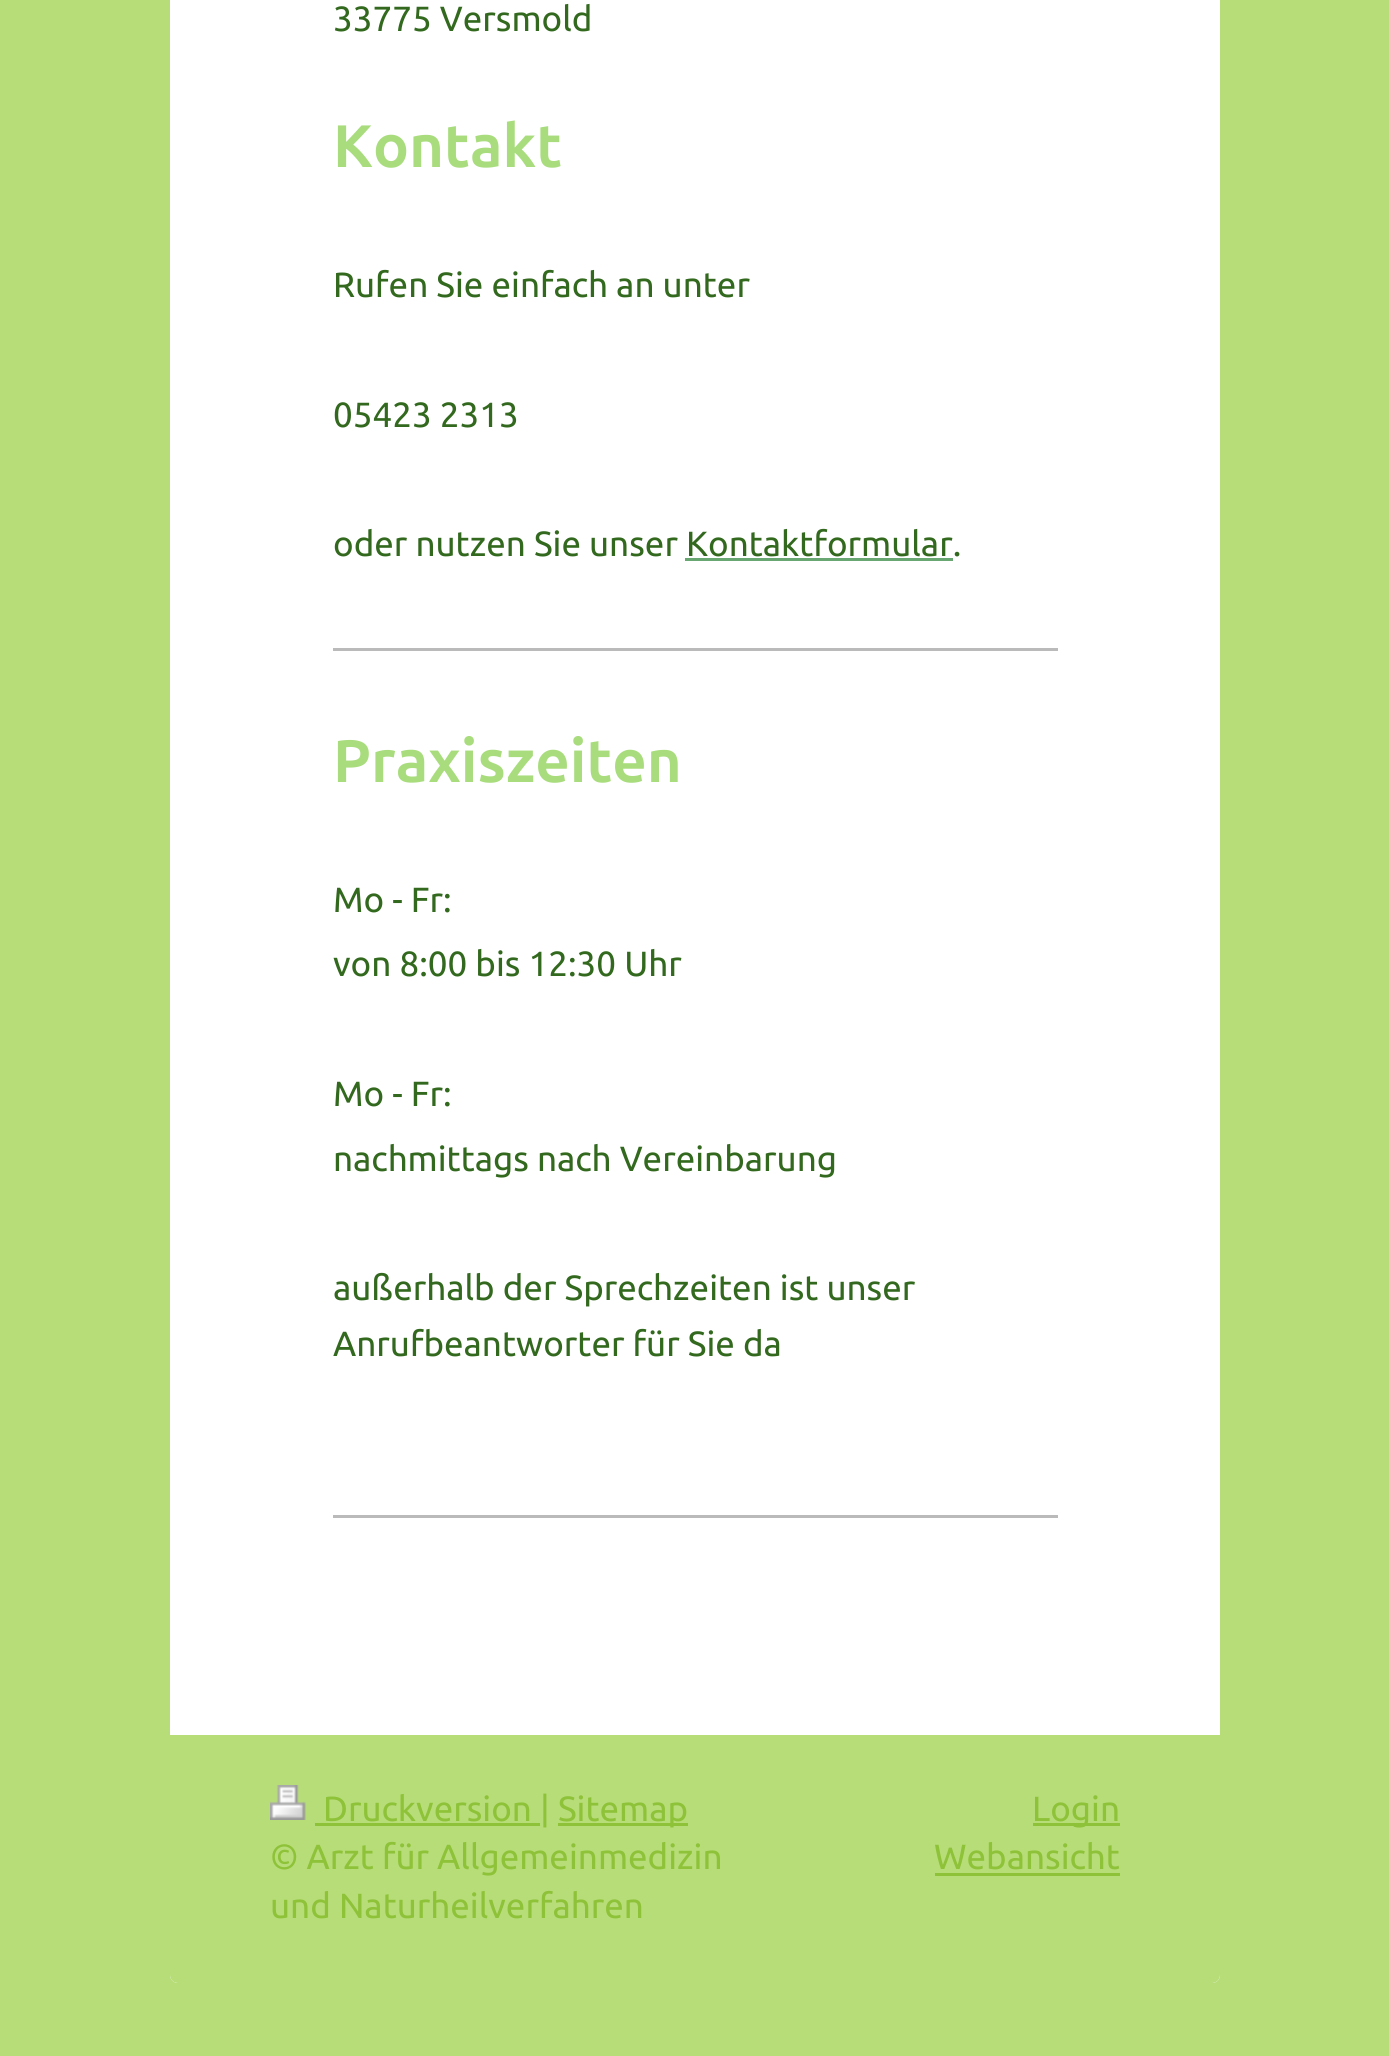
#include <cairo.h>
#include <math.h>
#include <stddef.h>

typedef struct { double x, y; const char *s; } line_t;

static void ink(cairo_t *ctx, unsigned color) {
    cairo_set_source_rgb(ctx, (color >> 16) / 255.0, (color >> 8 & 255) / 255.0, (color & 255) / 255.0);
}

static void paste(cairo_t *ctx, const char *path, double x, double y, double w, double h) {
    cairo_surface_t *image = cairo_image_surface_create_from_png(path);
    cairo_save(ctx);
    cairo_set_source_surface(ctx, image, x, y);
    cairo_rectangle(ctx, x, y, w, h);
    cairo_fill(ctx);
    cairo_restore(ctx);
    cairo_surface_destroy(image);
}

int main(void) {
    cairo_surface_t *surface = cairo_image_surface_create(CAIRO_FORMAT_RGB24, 1389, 2056);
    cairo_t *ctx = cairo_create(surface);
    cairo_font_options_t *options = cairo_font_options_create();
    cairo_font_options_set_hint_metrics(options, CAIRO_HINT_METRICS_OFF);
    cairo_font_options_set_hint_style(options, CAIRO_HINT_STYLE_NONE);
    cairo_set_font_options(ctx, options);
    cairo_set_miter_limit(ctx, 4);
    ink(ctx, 0xB7DD79);
    cairo_paint(ctx);
    ink(ctx, 0xFFFFFF);
    cairo_new_path(ctx);
    cairo_move_to(ctx, 170, -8);
    cairo_line_to(ctx, 1220, -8);
    cairo_line_to(ctx, 1220, 1975);
    cairo_curve_to(ctx, 1220, 1979.5, 1216.5, 1983, 1212, 1983);
    cairo_line_to(ctx, 178, 1983);
    cairo_curve_to(ctx, 173.5, 1983, 170, 1979.5, 170, 1975);
    cairo_close_path(ctx);
    cairo_fill(ctx);
    cairo_select_font_face(ctx, "Ubuntu", CAIRO_FONT_SLANT_NORMAL, CAIRO_FONT_WEIGHT_NORMAL);
    cairo_set_font_size(ctx, 35);
    ink(ctx, 0x32691E);
    cairo_move_to(ctx, 333, 31);
    cairo_show_text(ctx, "33775 Versmold");
    cairo_select_font_face(ctx, "Ubuntu", CAIRO_FONT_SLANT_NORMAL, CAIRO_FONT_WEIGHT_BOLD);
    cairo_set_font_size(ctx, 60);
    ink(ctx, 0xA8DC7D);
    cairo_move_to(ctx, 333, 167);
    cairo_show_text(ctx, "Kontakt");
    cairo_select_font_face(ctx, "Ubuntu", CAIRO_FONT_SLANT_NORMAL, CAIRO_FONT_WEIGHT_NORMAL);
    cairo_set_font_size(ctx, 35);
    ink(ctx, 0x32691E);
    {
        static const line_t items[] = {
            {333, 297, "Rufen Sie einfach an unter"},
            {333, 427, "05423 2313"},
            {333, 556, "oder nutzen Sie unser Kontaktformular."},
        };
        for (size_t i = 0; i < sizeof items / sizeof *items; i++) {
            cairo_move_to(ctx, items[i].x, items[i].y);
            cairo_show_text(ctx, items[i].s);
        }
    }
    ink(ctx, 0x68A772);
    cairo_rectangle(ctx, 685, 558, 268, 3);
    cairo_fill(ctx);
    ink(ctx, 0xBABABA);
    cairo_rectangle(ctx, 333, 648, 725, 3);
    cairo_fill(ctx);
    cairo_select_font_face(ctx, "Ubuntu", CAIRO_FONT_SLANT_NORMAL, CAIRO_FONT_WEIGHT_BOLD);
    cairo_set_font_size(ctx, 60);
    ink(ctx, 0xA8DC7D);
    cairo_move_to(ctx, 333, 782);
    cairo_show_text(ctx, "Praxiszeiten");
    cairo_select_font_face(ctx, "Ubuntu", CAIRO_FONT_SLANT_NORMAL, CAIRO_FONT_WEIGHT_NORMAL);
    cairo_set_font_size(ctx, 35);
    ink(ctx, 0x32691E);
    {
        static const line_t items[] = {
            {333, 912, "Mo - Fr:"},
            {333, 976, "von 8:00 bis 12:30 Uhr"},
            {333, 1106, "Mo - Fr:"},
            {333, 1171, "nachmittags nach Vereinbarung"},
            {333, 1300, "außerhalb der Sprechzeiten ist unser"},
            {333, 1356, "Anrufbeantworter für Sie da"},
        };
        for (size_t i = 0; i < sizeof items / sizeof *items; i++) {
            cairo_move_to(ctx, items[i].x, items[i].y);
            cairo_show_text(ctx, items[i].s);
        }
    }
    ink(ctx, 0xBABABA);
    cairo_rectangle(ctx, 333, 1515, 725, 3);
    cairo_fill(ctx);
    ink(ctx, 0xB7DD79);
    cairo_new_path(ctx);
    cairo_move_to(ctx, 170, 1735);
    cairo_line_to(ctx, 1220, 1735);
    cairo_line_to(ctx, 1220, 1975);
    cairo_curve_to(ctx, 1220, 1979.5, 1216.5, 1983, 1212, 1983);
    cairo_line_to(ctx, 178, 1983);
    cairo_curve_to(ctx, 173.5, 1983, 170, 1979.5, 170, 1975);
    cairo_close_path(ctx);
    cairo_fill(ctx);
    paste(ctx, "media/1.png", 270, 1785, 36, 35);
    ink(ctx, 0x8EC238);
    cairo_rectangle(ctx, 315, 1823, 225, 3);
    cairo_fill(ctx);
    cairo_move_to(ctx, 323, 1821);
    cairo_show_text(ctx, "Druckversion |");
    cairo_rectangle(ctx, 558, 1823, 130, 3);
    cairo_fill(ctx);
    {
        static const line_t items[] = {
            {558, 1821, "Sitemap"},
            {270, 1869, "© Arzt für Allgemeinmedizin"},
            {270, 1918, "und Naturheilverfahren"},
        };
        for (size_t i = 0; i < sizeof items / sizeof *items; i++) {
            cairo_move_to(ctx, items[i].x, items[i].y);
            cairo_show_text(ctx, items[i].s);
        }
    }
    cairo_rectangle(ctx, 1033, 1823, 87, 3);
    cairo_fill(ctx);
    cairo_move_to(ctx, 1032, 1821);
    cairo_show_text(ctx, "Login");
    cairo_move_to(ctx, 934, 1869);
    cairo_show_text(ctx, "Webansicht");
    cairo_rectangle(ctx, 935, 1873, 185, 3);
    cairo_fill(ctx);
    cairo_surface_write_to_png(surface, "image.png");
    cairo_font_options_destroy(options);
    cairo_destroy(ctx);
    cairo_surface_destroy(surface);
    return 0;
}
